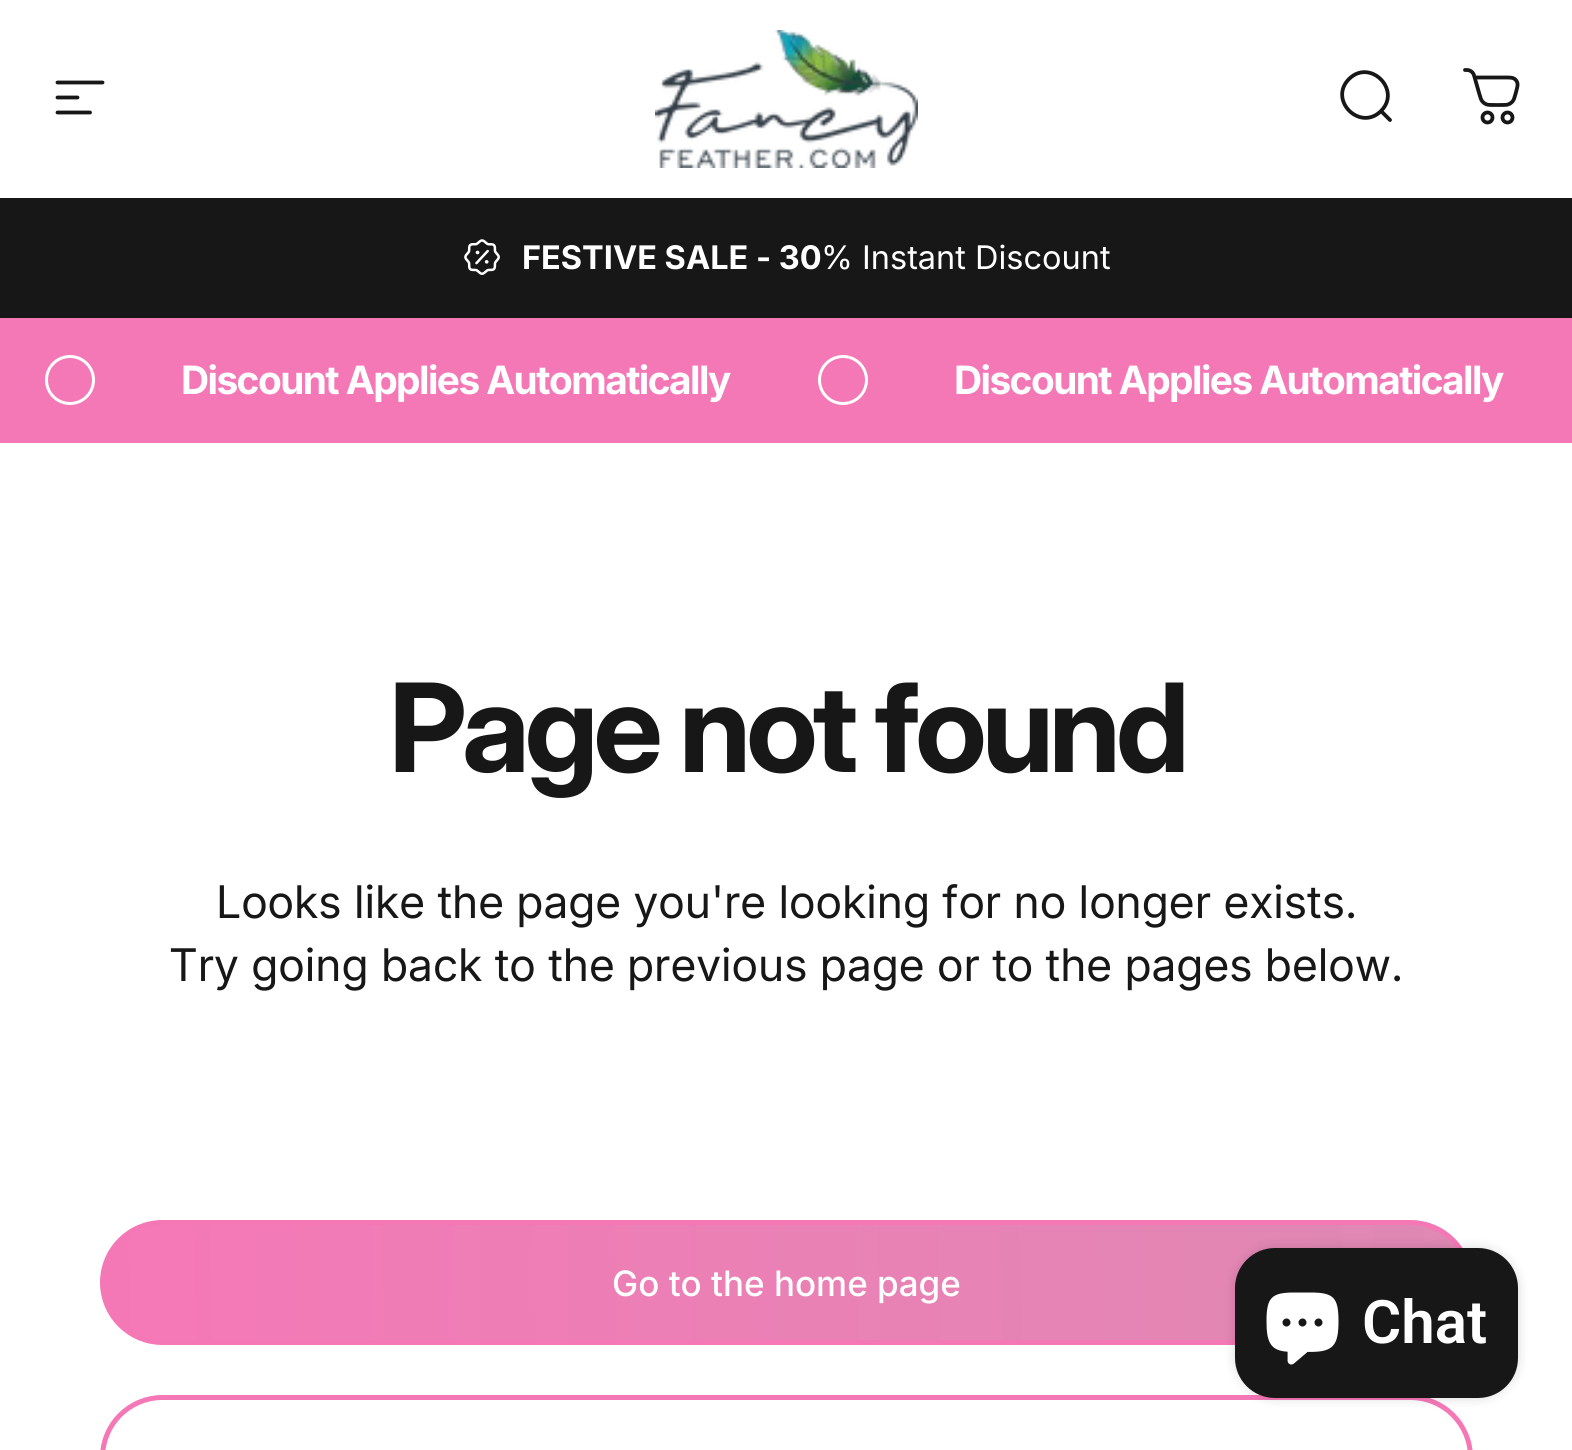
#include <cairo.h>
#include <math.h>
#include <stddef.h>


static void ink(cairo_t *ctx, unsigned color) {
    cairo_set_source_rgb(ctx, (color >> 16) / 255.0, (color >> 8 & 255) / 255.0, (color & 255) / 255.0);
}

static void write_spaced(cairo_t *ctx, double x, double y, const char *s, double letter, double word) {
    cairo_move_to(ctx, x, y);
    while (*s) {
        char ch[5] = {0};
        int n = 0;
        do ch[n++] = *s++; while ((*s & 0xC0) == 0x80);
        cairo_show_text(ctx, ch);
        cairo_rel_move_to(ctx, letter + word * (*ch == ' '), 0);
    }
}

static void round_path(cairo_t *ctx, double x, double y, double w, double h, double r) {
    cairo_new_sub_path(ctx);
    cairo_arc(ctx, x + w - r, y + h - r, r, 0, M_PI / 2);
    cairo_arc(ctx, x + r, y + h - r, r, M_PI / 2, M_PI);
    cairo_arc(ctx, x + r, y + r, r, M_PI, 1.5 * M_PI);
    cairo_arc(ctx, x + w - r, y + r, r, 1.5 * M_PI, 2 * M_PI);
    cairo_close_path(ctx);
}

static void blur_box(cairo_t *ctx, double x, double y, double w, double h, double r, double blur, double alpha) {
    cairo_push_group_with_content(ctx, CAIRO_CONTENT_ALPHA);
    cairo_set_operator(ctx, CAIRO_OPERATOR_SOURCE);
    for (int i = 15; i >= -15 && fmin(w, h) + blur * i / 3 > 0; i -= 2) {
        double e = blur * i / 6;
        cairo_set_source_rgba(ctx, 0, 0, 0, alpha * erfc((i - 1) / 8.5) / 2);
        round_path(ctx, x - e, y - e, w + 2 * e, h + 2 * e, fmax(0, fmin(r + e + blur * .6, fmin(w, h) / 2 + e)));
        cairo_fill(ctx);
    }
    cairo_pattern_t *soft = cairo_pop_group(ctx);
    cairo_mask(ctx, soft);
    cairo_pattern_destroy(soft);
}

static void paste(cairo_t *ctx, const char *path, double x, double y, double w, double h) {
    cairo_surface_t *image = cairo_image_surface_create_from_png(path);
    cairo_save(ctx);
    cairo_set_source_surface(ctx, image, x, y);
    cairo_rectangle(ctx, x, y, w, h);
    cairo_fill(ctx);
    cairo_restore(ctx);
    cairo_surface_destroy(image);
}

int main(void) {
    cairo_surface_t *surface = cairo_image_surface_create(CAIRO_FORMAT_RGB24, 1572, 1450);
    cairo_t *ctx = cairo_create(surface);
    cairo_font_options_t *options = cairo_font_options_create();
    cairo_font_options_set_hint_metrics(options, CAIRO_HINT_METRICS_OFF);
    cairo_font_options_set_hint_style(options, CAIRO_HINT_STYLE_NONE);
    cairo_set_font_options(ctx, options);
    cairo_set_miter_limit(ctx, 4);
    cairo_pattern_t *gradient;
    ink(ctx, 0xFFFFFF);
    cairo_paint(ctx);
    cairo_new_path(ctx);
    cairo_move_to(ctx, 57.5, 82.5);
    cairo_line_to(ctx, 102.5, 82.5);
    cairo_move_to(ctx, 57.5, 97.5);
    cairo_line_to(ctx, 77.5, 97.5);
    cairo_move_to(ctx, 57.5, 112.5);
    cairo_line_to(ctx, 90, 112.5);
    ink(ctx, 0x171717);
    cairo_set_line_width(ctx, 3.8);
    cairo_set_line_cap(ctx, CAIRO_LINE_CAP_ROUND);
    cairo_stroke(ctx);
    paste(ctx, "media/1.png", 655, 30, 263, 138);
    cairo_new_path(ctx);
    cairo_move_to(ctx, 1390, 120);
    cairo_line_to(ctx, 1381, 111);
    cairo_move_to(ctx, 1381, 111);
    cairo_curve_to(ctx, 1402, 90, 1370, 58, 1349, 79);
    cairo_curve_to(ctx, 1328, 100, 1360, 132, 1381, 111);
    cairo_close_path(ctx);
    cairo_stroke(ctx);
    paste(ctx, "media/2.png", 1463, 68, 57, 57);
    cairo_rectangle(ctx, 0, 198, 1572, 40);
    cairo_fill(ctx);
    cairo_new_path(ctx);
    cairo_move_to(ctx, 40, 198);
    cairo_line_to(ctx, 1533, 198);
    cairo_curve_to(ctx, 1555, 198, 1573, 216, 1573, 238);
    cairo_line_to(ctx, 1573, 358);
    cairo_line_to(ctx, 0, 358);
    cairo_line_to(ctx, 0, 238);
    cairo_curve_to(ctx, 0, 216, 18, 198, 40, 198);
    cairo_close_path(ctx);
    cairo_fill(ctx);
    paste(ctx, "media/3.png", 464, 239, 36, 36);
    cairo_select_font_face(ctx, "Inter", CAIRO_FONT_SLANT_NORMAL, CAIRO_FONT_WEIGHT_BOLD);
    cairo_set_font_size(ctx, 32.5);
    ink(ctx, 0xFFFFFF);
    cairo_move_to(ctx, 522, 269);
    cairo_show_text(ctx, "FESTIVE SALE - 30");
    cairo_select_font_face(ctx, "Inter", CAIRO_FONT_SLANT_NORMAL, CAIRO_FONT_WEIGHT_NORMAL);
    cairo_move_to(ctx, 821, 269);
    cairo_show_text(ctx, "% Instant Discount");
    ink(ctx, 0xF578B6);
    cairo_rectangle(ctx, 0, 318, 1572, 125);
    cairo_fill(ctx);
    cairo_arc(ctx, 70, 380, 23.5, 0, 2 * M_PI);
    ink(ctx, 0xFFFFFF);
    cairo_set_line_width(ctx, 3);
    cairo_set_line_cap(ctx, CAIRO_LINE_CAP_BUTT);
    cairo_stroke(ctx);
    cairo_select_font_face(ctx, "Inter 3", CAIRO_FONT_SLANT_NORMAL, CAIRO_FONT_WEIGHT_BOLD);
    cairo_set_font_size(ctx, 39);
    write_spaced(ctx, 181, 394, "Discount Applies Automatically", -1.55, 0);
    cairo_new_path(ctx);
    cairo_arc(ctx, 843, 380, 23.5, 0, 2 * M_PI);
    cairo_stroke(ctx);
    write_spaced(ctx, 954, 394, "Discount Applies Automatically", -1.55, 0);
    cairo_select_font_face(ctx, "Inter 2", CAIRO_FONT_SLANT_NORMAL, CAIRO_FONT_WEIGHT_BOLD);
    cairo_set_font_size(ctx, 123);
    ink(ctx, 0x171717);
    write_spaced(ctx, 389, 772, "Page not found", -4.9, 0);
    cairo_select_font_face(ctx, "Inter 2", CAIRO_FONT_SLANT_NORMAL, CAIRO_FONT_WEIGHT_NORMAL);
    cairo_set_font_size(ctx, 45);
    cairo_move_to(ctx, 216, 918);
    cairo_show_text(ctx, "Looks like the page you're looking for no longer exists.");
    cairo_move_to(ctx, 169, 981);
    cairo_show_text(ctx, "Try going back to the previous page or to the pages below.");
    gradient = cairo_pattern_create_linear(99, 1294, 1473, 1271);
    cairo_pattern_add_color_stop_rgba(gradient, 0, 0.961, 0.471, 0.714, 1);
    cairo_pattern_add_color_stop_rgba(gradient, 0.99, 0.875, 0.537, 0.706, 1);
    cairo_set_source(ctx, gradient);
    cairo_pattern_destroy(gradient);
    round_path(ctx, 102.5, 1222.5, 1368, 120, 60);
    cairo_fill_preserve(ctx);
    ink(ctx, 0xF578B6);
    cairo_set_line_width(ctx, 5);
    cairo_stroke(ctx);
    cairo_select_font_face(ctx, "Inter Medium", CAIRO_FONT_SLANT_NORMAL, CAIRO_FONT_WEIGHT_NORMAL);
    cairo_set_font_size(ctx, 35);
    ink(ctx, 0xFFFFFF);
    cairo_move_to(ctx, 612, 1296);
    cairo_show_text(ctx, "Go to the home page");
    round_path(ctx, 102.5, 1397.5, 1368, 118, 60);
    ink(ctx, 0xF578B6);
    cairo_stroke(ctx);
    ink(ctx, 0x000000);
    blur_box(ctx, 1235, 1248, 283, 150, 40, 6, 0.15);
    ink(ctx, 0x171717);
    round_path(ctx, 1235, 1248, 283, 150, 40);
    cairo_fill(ctx);
    paste(ctx, "media/4.png", 1266, 1292, 73, 73);
    cairo_select_font_face(ctx, "Roboto SemiBold", CAIRO_FONT_SLANT_NORMAL, CAIRO_FONT_WEIGHT_NORMAL);
    cairo_set_font_size(ctx, 60);
    ink(ctx, 0xFFFFFF);
    cairo_move_to(ctx, 1362, 1343);
    cairo_show_text(ctx, "Chat");
    cairo_surface_write_to_png(surface, "image.png");
    cairo_font_options_destroy(options);
    cairo_destroy(ctx);
    cairo_surface_destroy(surface);
    return 0;
}
